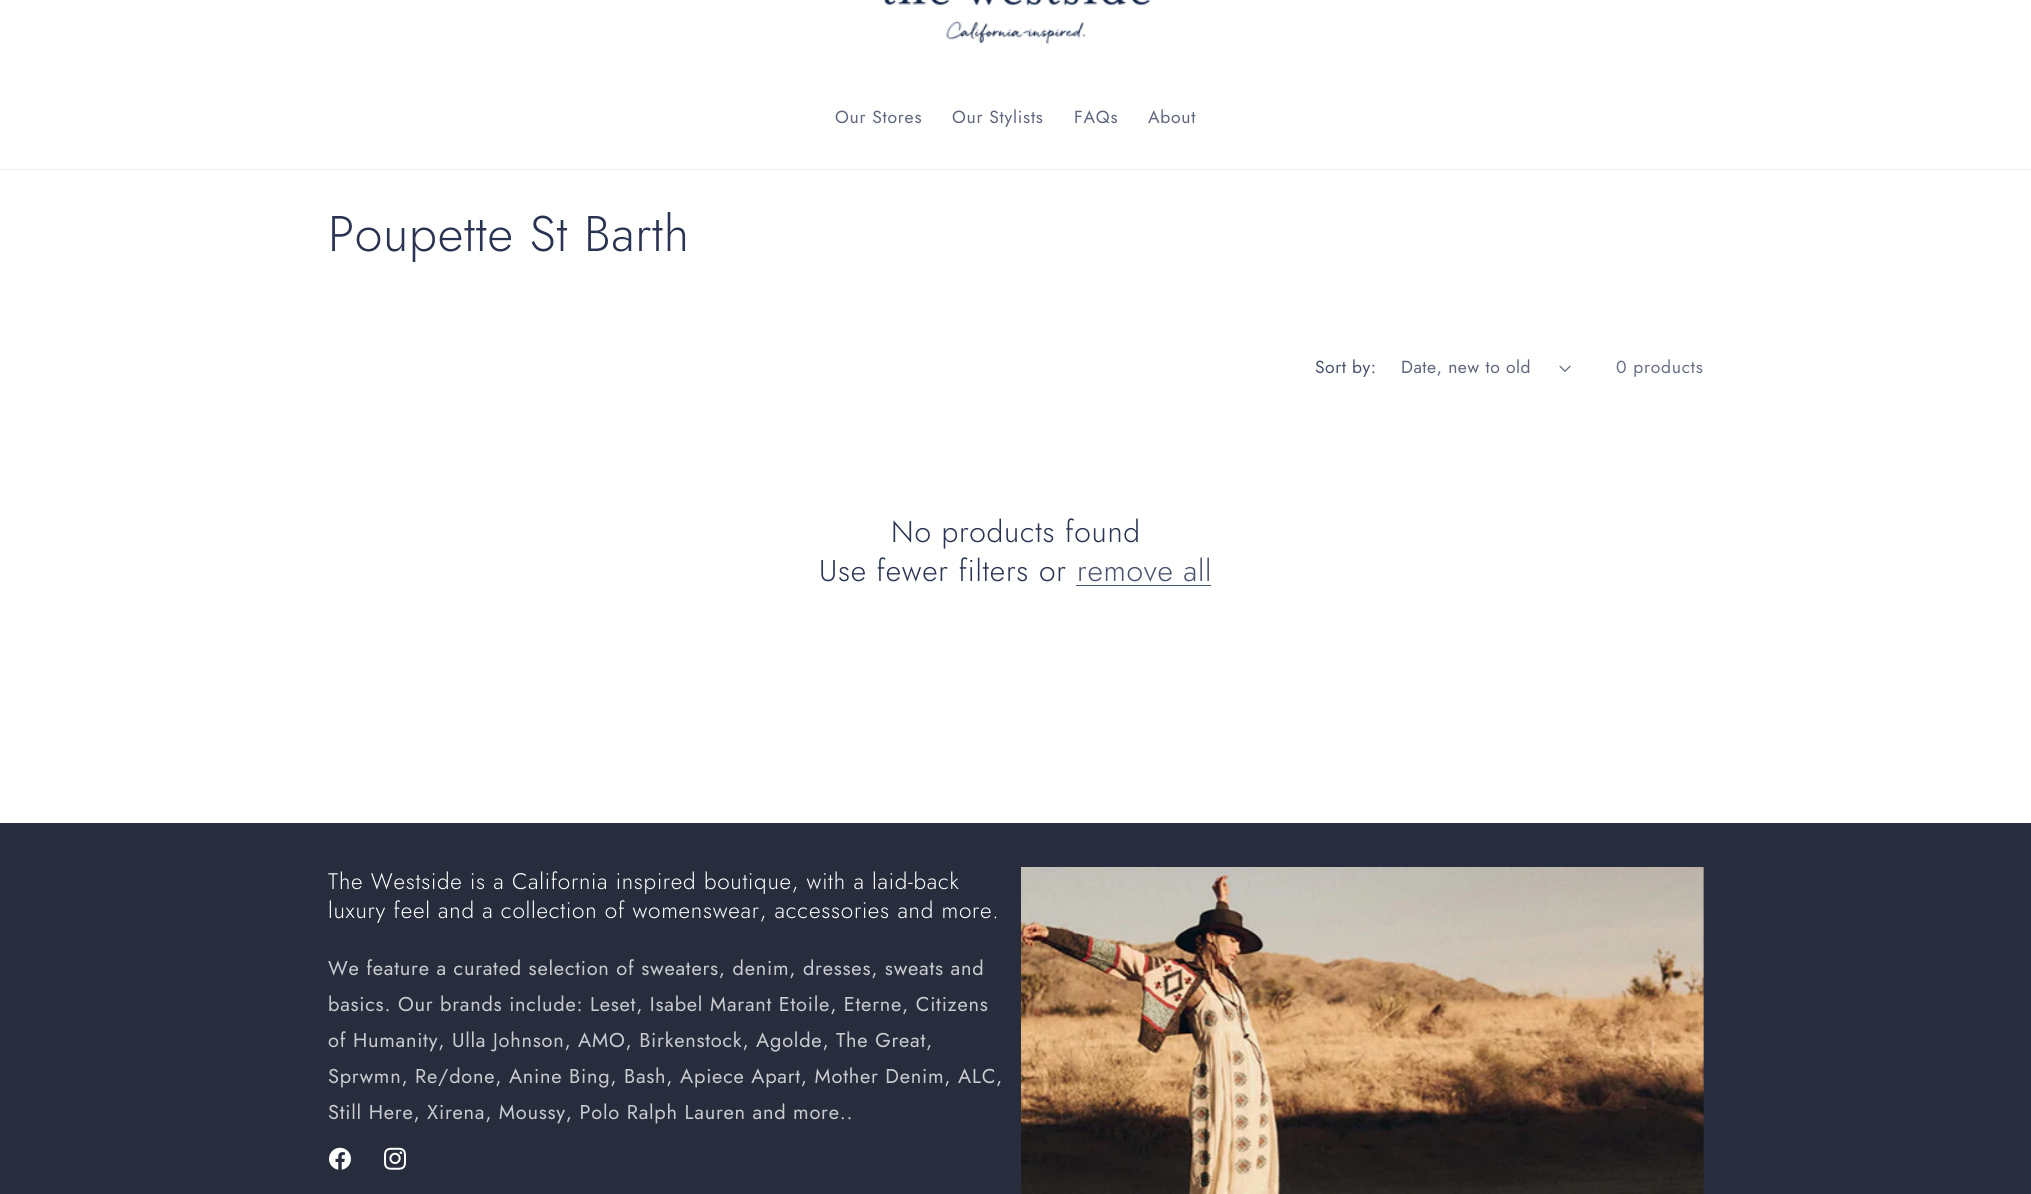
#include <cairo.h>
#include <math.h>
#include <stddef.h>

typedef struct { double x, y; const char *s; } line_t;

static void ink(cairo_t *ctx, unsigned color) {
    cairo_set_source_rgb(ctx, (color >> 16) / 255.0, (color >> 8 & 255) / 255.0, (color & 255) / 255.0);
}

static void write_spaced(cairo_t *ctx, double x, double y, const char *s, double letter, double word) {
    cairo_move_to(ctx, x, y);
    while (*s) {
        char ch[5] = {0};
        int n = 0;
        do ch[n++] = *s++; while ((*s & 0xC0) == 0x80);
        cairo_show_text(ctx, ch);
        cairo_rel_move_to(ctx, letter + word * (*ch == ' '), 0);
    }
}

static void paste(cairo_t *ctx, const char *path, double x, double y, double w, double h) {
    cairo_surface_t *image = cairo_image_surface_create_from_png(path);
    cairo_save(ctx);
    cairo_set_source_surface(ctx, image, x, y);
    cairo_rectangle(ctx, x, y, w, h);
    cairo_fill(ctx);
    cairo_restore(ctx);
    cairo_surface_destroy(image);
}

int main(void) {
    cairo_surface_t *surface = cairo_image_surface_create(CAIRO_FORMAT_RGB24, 2031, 1194);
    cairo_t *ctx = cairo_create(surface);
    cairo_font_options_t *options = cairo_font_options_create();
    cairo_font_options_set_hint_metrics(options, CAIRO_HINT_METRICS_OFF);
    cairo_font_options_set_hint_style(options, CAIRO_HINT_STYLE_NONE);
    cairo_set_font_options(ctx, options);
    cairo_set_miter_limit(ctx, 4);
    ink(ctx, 0xFFFFFF);
    cairo_paint(ctx);
    ink(ctx, 0xEEEFF1);
    cairo_rectangle(ctx, 0, 169, 2031, 1);
    cairo_fill(ctx);
    paste(ctx, "media/1.png", 883, 0, 268, 44);
    cairo_select_font_face(ctx, "Jost", CAIRO_FONT_SLANT_NORMAL, CAIRO_FONT_WEIGHT_NORMAL);
    cairo_set_font_size(ctx, 17.5);
    ink(ctx, 0x5F667D);
    {
        static const line_t items[] = {
            {835, 123, "Our Stores"},
            {952, 123, "Our Stylists"},
            {1074, 123, "FAQs"},
            {1148, 123, "About"},
        };
        for (size_t i = 0; i < sizeof items / sizeof *items; i++) {
            write_spaced(ctx, items[i].x, items[i].y, items[i].s, 0.75, 0);
        }
    }
    cairo_select_font_face(ctx, "Jost Light", CAIRO_FONT_SLANT_NORMAL, CAIRO_FONT_WEIGHT_NORMAL);
    cairo_set_font_size(ctx, 50);
    ink(ctx, 0x293352);
    write_spaced(ctx, 328, 251, "Poupette St Barth", 0.75, 0);
    cairo_select_font_face(ctx, "Jost", CAIRO_FONT_SLANT_NORMAL, CAIRO_FONT_WEIGHT_NORMAL);
    cairo_set_font_size(ctx, 17.5);
    ink(ctx, 0x49526C);
    write_spaced(ctx, 1315, 373, "Sort by:", 0.5, 0);
    ink(ctx, 0x5F667D);
    write_spaced(ctx, 1401, 373, "Date, new to old", 0.5, 0);
    paste(ctx, "media/2.png", 1559, 365, 12, 7);
    ink(ctx, 0x697086);
    write_spaced(ctx, 1616, 373, "0 products", 0.75, 0);
    cairo_select_font_face(ctx, "Jost Light", CAIRO_FONT_SLANT_NORMAL, CAIRO_FONT_WEIGHT_NORMAL);
    cairo_set_font_size(ctx, 30);
    ink(ctx, 0x293352);
    write_spaced(ctx, 891, 542, "No products found", 0.75, 0);
    write_spaced(ctx, 819, 581, "Use fewer filters or", 0.75, 0);
    ink(ctx, 0x49526C);
    write_spaced(ctx, 1077, 581, "remove all", 0.75, 0);
    cairo_rectangle(ctx, 1076, 585, 135, 1);
    cairo_fill(ctx);
    ink(ctx, 0x282D3D);
    cairo_rectangle(ctx, 0, 823, 2031, 371);
    cairo_fill(ctx);
    cairo_set_font_size(ctx, 22.5);
    ink(ctx, 0xFFFFFF);
    write_spaced(ctx, 328, 889, "The Westside is a California inspired boutique, with a laid-back", 0.75, 0);
    write_spaced(ctx, 328, 918, "luxury feel and a collection of womenswear, accessories and more.", 0.75, 0);
    cairo_select_font_face(ctx, "Jost", CAIRO_FONT_SLANT_NORMAL, CAIRO_FONT_WEIGHT_NORMAL);
    cairo_set_font_size(ctx, 20);
    ink(ctx, 0xC9CBCF);
    {
        static const line_t items[] = {
            {328, 975, "We feature a curated selection of sweaters, denim, dresses, sweats and"},
            {328, 1011, "basics. Our brands include: Leset, Isabel Marant Etoile, Eterne, Citizens"},
            {328, 1047, "of Humanity, Ulla Johnson, AMO, Birkenstock, Agolde, The Great,"},
            {328, 1083, "Sprwmn, Re/done, Anine Bing, Bash, Apiece Apart, Mother Denim, ALC,"},
            {328, 1119, "Still Here, Xirena, Moussy, Polo Ralph Lauren and more.."},
        };
        for (size_t i = 0; i < sizeof items / sizeof *items; i++) {
            write_spaced(ctx, items[i].x, items[i].y, items[i].s, 0.75, 0);
        }
    }
    paste(ctx, "media/3.png", 329, 1147, 22, 23);
    paste(ctx, "media/4.png", 384, 1147, 22, 23);
    paste(ctx, "media/5.png", 1021, 867, 683, 327);
    cairo_surface_write_to_png(surface, "image.png");
    cairo_font_options_destroy(options);
    cairo_destroy(ctx);
    cairo_surface_destroy(surface);
    return 0;
}
